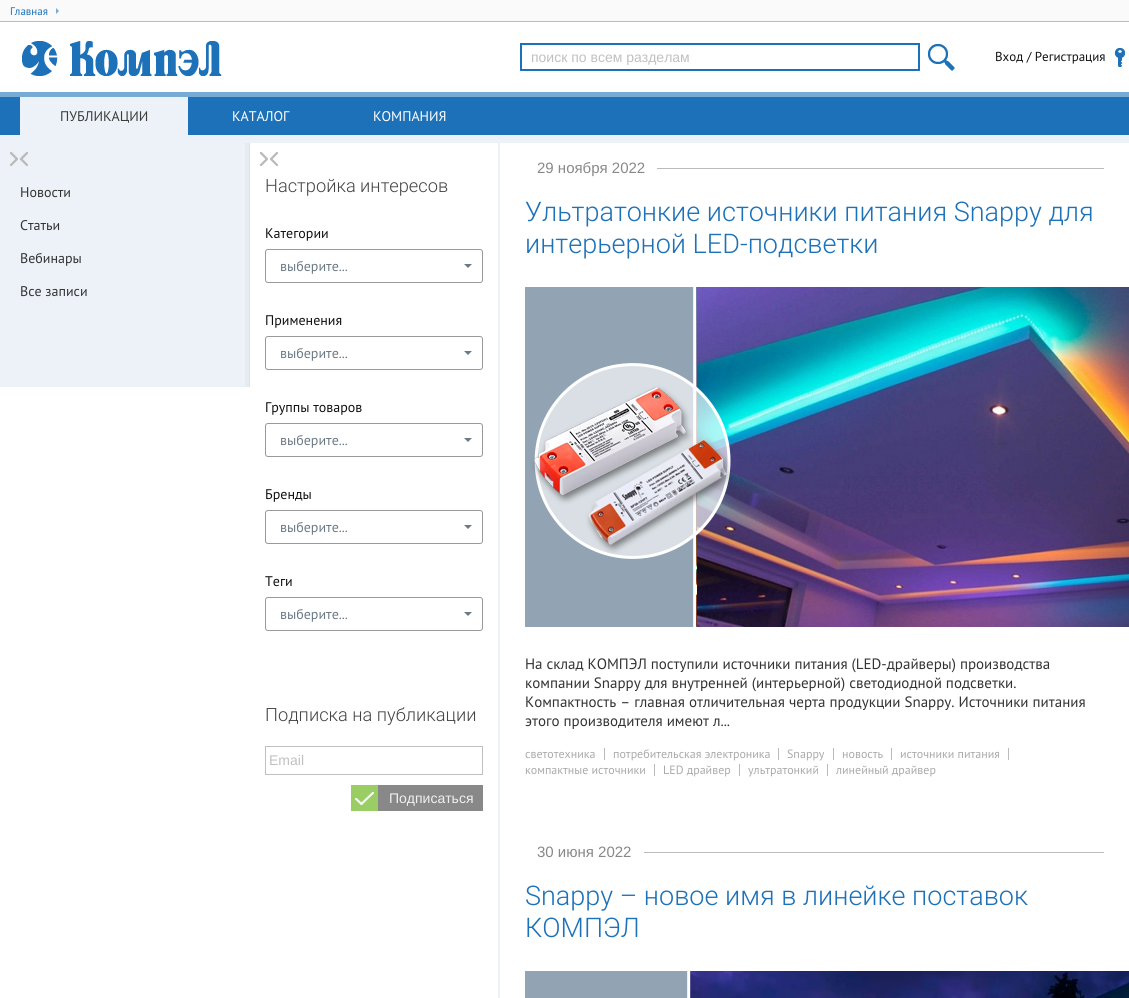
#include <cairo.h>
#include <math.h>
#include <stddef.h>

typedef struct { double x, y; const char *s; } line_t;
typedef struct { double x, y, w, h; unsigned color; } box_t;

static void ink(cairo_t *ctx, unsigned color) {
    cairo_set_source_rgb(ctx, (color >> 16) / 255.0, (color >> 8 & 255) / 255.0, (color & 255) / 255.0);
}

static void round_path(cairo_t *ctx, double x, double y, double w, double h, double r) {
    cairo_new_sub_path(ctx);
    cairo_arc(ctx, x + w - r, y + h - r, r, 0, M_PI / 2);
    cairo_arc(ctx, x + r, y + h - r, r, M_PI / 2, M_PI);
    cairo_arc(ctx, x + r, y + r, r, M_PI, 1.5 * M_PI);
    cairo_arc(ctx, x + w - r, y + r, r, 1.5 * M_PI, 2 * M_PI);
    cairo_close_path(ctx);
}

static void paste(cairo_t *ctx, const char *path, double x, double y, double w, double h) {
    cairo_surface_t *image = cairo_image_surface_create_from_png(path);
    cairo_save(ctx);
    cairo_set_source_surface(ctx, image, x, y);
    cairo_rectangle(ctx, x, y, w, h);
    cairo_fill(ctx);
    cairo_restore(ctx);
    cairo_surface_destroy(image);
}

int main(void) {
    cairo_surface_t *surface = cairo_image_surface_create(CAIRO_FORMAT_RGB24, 1129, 998);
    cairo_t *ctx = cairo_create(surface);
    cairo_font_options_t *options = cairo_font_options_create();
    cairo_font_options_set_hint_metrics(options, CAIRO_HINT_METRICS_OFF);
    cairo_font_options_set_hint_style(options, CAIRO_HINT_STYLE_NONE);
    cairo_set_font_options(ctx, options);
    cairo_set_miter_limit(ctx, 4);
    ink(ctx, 0xFFFFFF);
    cairo_paint(ctx);
    ink(ctx, 0xFAFAFA);
    cairo_rectangle(ctx, 0, 0, 1129, 21);
    cairo_fill(ctx);
    ink(ctx, 0xBCBCBC);
    cairo_rectangle(ctx, 0, 21, 1129, 1);
    cairo_fill(ctx);
    cairo_select_font_face(ctx, "PT Sans", CAIRO_FONT_SLANT_NORMAL, CAIRO_FONT_WEIGHT_NORMAL);
    cairo_set_font_size(ctx, 11);
    ink(ctx, 0x1D71B8);
    cairo_move_to(ctx, 10, 15);
    cairo_show_text(ctx, "Главная");
    ink(ctx, 0x77AAD4);
    cairo_new_path(ctx);
    cairo_move_to(ctx, 56, 14);
    cairo_line_to(ctx, 56, 8);
    cairo_line_to(ctx, 59, 11);
    cairo_close_path(ctx);
    cairo_fill(ctx);
    paste(ctx, "media/1.png", 22, 41, 200, 35);
    cairo_rectangle(ctx, 521, 44, 398, 26);
    ink(ctx, 0x1D71B8);
    cairo_stroke(ctx);
    cairo_select_font_face(ctx, "Liberation Sans", CAIRO_FONT_SLANT_NORMAL, CAIRO_FONT_WEIGHT_NORMAL);
    cairo_set_font_size(ctx, 14);
    ink(ctx, 0xC0C0C0);
    cairo_move_to(ctx, 531, 62);
    cairo_show_text(ctx, "поиск по всем разделам");
    paste(ctx, "media/2.png", 928, 44, 27, 27);
    paste(ctx, "media/3.png", 1114, 48, 11, 19);
    cairo_select_font_face(ctx, "PT Sans", CAIRO_FONT_SLANT_NORMAL, CAIRO_FONT_WEIGHT_NORMAL);
    cairo_set_font_size(ctx, 13);
    ink(ctx, 0x111111);
    cairo_move_to(ctx, 995, 61);
    cairo_show_text(ctx, "Вход / Регистрация");
    {
        static const box_t items[] = {
            {0, 97, 1129, 38, 0x1D71B8},
            {0, 92, 1129, 5, 0x77AAD4},
            {0, 135, 1129, 8, 0xEDF2F8},
            {20, 97, 168, 38, 0xEDF2F8},
        };
        for (size_t i = 0; i < sizeof items / sizeof *items; i++) {
            ink(ctx, items[i].color);
            cairo_rectangle(ctx, items[i].x, items[i].y, items[i].w, items[i].h);
            cairo_fill(ctx);
        }
    }
    cairo_set_font_size(ctx, 14);
    ink(ctx, 0x3C3C3B);
    cairo_move_to(ctx, 60, 121);
    cairo_show_text(ctx, "ПУБЛИКАЦИИ");
    ink(ctx, 0xFFFFFF);
    cairo_move_to(ctx, 232, 121);
    cairo_show_text(ctx, "КАТАЛОГ");
    cairo_move_to(ctx, 373, 121);
    cairo_show_text(ctx, "КОМПАНИЯ");
    ink(ctx, 0xEDF2F8);
    cairo_rectangle(ctx, 0, 143, 245, 244);
    cairo_fill(ctx);
    paste(ctx, "media/4.png", 10, 152, 18, 14);
    ink(ctx, 0x333333);
    {
        static const line_t items[] = {
            {20, 197, "Новости"},
            {20, 230, "Статьи"},
            {20, 263, "Вебинары"},
            {20, 296, "Все записи"},
        };
        for (size_t i = 0; i < sizeof items / sizeof *items; i++) {
            cairo_move_to(ctx, items[i].x, items[i].y);
            cairo_show_text(ctx, items[i].s);
        }
    }
    ink(ctx, 0xE4EBF3);
    cairo_rectangle(ctx, 245, 143, 4, 244);
    cairo_fill(ctx);
    ink(ctx, 0xD8E4F0);
    cairo_rectangle(ctx, 249, 143, 1, 244);
    cairo_fill(ctx);
    paste(ctx, "media/5.png", 259, 151, 19, 15);
    cairo_select_font_face(ctx, "Roboto Light", CAIRO_FONT_SLANT_NORMAL, CAIRO_FONT_WEIGHT_NORMAL);
    cairo_set_font_size(ctx, 18.25);
    ink(ctx, 0x444444);
    cairo_move_to(ctx, 265, 192);
    cairo_show_text(ctx, "Настройка интересов");
    cairo_select_font_face(ctx, "PT Sans", CAIRO_FONT_SLANT_NORMAL, CAIRO_FONT_WEIGHT_NORMAL);
    cairo_set_font_size(ctx, 14);
    ink(ctx, 0x111111);
    cairo_move_to(ctx, 265, 238);
    cairo_show_text(ctx, "Категории");
    round_path(ctx, 265.5, 249.5, 217, 33, 2.5);
    ink(ctx, 0x999999);
    cairo_set_line_width(ctx, 1);
    cairo_stroke(ctx);
    ink(ctx, 0x6C7A86);
    cairo_move_to(ctx, 280, 271);
    cairo_show_text(ctx, "выберите...");
    cairo_new_path(ctx);
    cairo_move_to(ctx, 464, 264);
    cairo_line_to(ctx, 472, 264);
    cairo_line_to(ctx, 468, 268);
    cairo_close_path(ctx);
    cairo_fill(ctx);
    ink(ctx, 0x111111);
    cairo_move_to(ctx, 265, 325);
    cairo_show_text(ctx, "Применения");
    round_path(ctx, 265.5, 336.5, 217, 33, 2.5);
    ink(ctx, 0x999999);
    cairo_stroke(ctx);
    ink(ctx, 0x6C7A86);
    cairo_move_to(ctx, 280, 358);
    cairo_show_text(ctx, "выберите...");
    cairo_new_path(ctx);
    cairo_move_to(ctx, 464, 351);
    cairo_line_to(ctx, 472, 351);
    cairo_line_to(ctx, 468, 355);
    cairo_close_path(ctx);
    cairo_fill(ctx);
    ink(ctx, 0x111111);
    cairo_move_to(ctx, 265, 412);
    cairo_show_text(ctx, "Группы товаров");
    round_path(ctx, 265.5, 423.5, 217, 33, 2.5);
    ink(ctx, 0x999999);
    cairo_stroke(ctx);
    ink(ctx, 0x6C7A86);
    cairo_move_to(ctx, 280, 445);
    cairo_show_text(ctx, "выберите...");
    cairo_new_path(ctx);
    cairo_move_to(ctx, 464, 438);
    cairo_line_to(ctx, 472, 438);
    cairo_line_to(ctx, 468, 442);
    cairo_close_path(ctx);
    cairo_fill(ctx);
    ink(ctx, 0x111111);
    cairo_move_to(ctx, 265, 499);
    cairo_show_text(ctx, "Бренды");
    round_path(ctx, 265.5, 510.5, 217, 33, 2.5);
    ink(ctx, 0x999999);
    cairo_stroke(ctx);
    ink(ctx, 0x6C7A86);
    cairo_move_to(ctx, 280, 532);
    cairo_show_text(ctx, "выберите...");
    cairo_new_path(ctx);
    cairo_move_to(ctx, 464, 525);
    cairo_line_to(ctx, 472, 525);
    cairo_line_to(ctx, 468, 529);
    cairo_close_path(ctx);
    cairo_fill(ctx);
    ink(ctx, 0x111111);
    cairo_move_to(ctx, 265, 586);
    cairo_show_text(ctx, "Теги");
    round_path(ctx, 265.5, 597.5, 217, 33, 2.5);
    ink(ctx, 0x999999);
    cairo_stroke(ctx);
    ink(ctx, 0x6C7A86);
    cairo_move_to(ctx, 280, 619);
    cairo_show_text(ctx, "выберите...");
    cairo_new_path(ctx);
    cairo_move_to(ctx, 464, 612);
    cairo_line_to(ctx, 472, 612);
    cairo_line_to(ctx, 468, 616);
    cairo_close_path(ctx);
    cairo_fill(ctx);
    cairo_select_font_face(ctx, "Roboto Light", CAIRO_FONT_SLANT_NORMAL, CAIRO_FONT_WEIGHT_NORMAL);
    cairo_set_font_size(ctx, 18.25);
    ink(ctx, 0x444444);
    cairo_move_to(ctx, 265, 721);
    cairo_show_text(ctx, "Подписка на публикации");
    cairo_rectangle(ctx, 265.5, 746.5, 217, 28);
    ink(ctx, 0xC0C0C0);
    cairo_stroke(ctx);
    cairo_select_font_face(ctx, "Liberation Sans", CAIRO_FONT_SLANT_NORMAL, CAIRO_FONT_WEIGHT_NORMAL);
    cairo_set_font_size(ctx, 14);
    cairo_move_to(ctx, 269, 765);
    cairo_show_text(ctx, "Email");
    ink(ctx, 0x888888);
    cairo_rectangle(ctx, 378, 785, 105, 26);
    cairo_fill(ctx);
    paste(ctx, "media/6.png", 351, 785, 27, 26);
    ink(ctx, 0xF0F0F0);
    cairo_move_to(ctx, 389, 803);
    cairo_show_text(ctx, "Подписаться");
    ink(ctx, 0xEDF2F8);
    cairo_rectangle(ctx, 498, 143, 2, 855);
    cairo_fill(ctx);
    ink(ctx, 0xBBBBBB);
    cairo_rectangle(ctx, 657, 168, 447, 1);
    cairo_fill(ctx);
    cairo_set_font_size(ctx, 15);
    ink(ctx, 0x888888);
    cairo_move_to(ctx, 537, 173);
    cairo_show_text(ctx, "29 ноября 2022");
    cairo_select_font_face(ctx, "Roboto Light", CAIRO_FONT_SLANT_NORMAL, CAIRO_FONT_WEIGHT_NORMAL);
    cairo_set_font_size(ctx, 27);
    ink(ctx, 0x1D71B8);
    cairo_move_to(ctx, 525, 221);
    cairo_show_text(ctx, "Ультратонкие источники питания Snappy для");
    cairo_move_to(ctx, 525, 253);
    cairo_show_text(ctx, "интерьерной LED-подсветки");
    paste(ctx, "media/7.png", 525, 287, 604, 340);
    cairo_select_font_face(ctx, "PT Sans", CAIRO_FONT_SLANT_NORMAL, CAIRO_FONT_WEIGHT_NORMAL);
    cairo_set_font_size(ctx, 15);
    ink(ctx, 0x333333);
    {
        static const line_t items[] = {
            {525, 669, "На склад КОМПЭЛ поступили источники питания (LED-драйверы) производства"},
            {525, 688, "компании Snappy для внутренней (интерьерной) светодиодной подсветки."},
            {525, 707, "Компактность – главная отличительная черта продукции Snappy. Источники питания"},
            {525, 726, "этого производителя имеют л..."},
        };
        for (size_t i = 0; i < sizeof items / sizeof *items; i++) {
            cairo_move_to(ctx, items[i].x, items[i].y);
            cairo_show_text(ctx, items[i].s);
        }
    }
    ink(ctx, 0xBBBBBB);
    cairo_rectangle(ctx, 604, 748, 1, 12);
    cairo_fill(ctx);
    cairo_set_font_size(ctx, 12);
    ink(ctx, 0xAAAAAA);
    cairo_move_to(ctx, 525, 758);
    cairo_show_text(ctx, "светотехника");
    ink(ctx, 0xBBBBBB);
    cairo_rectangle(ctx, 778, 748, 1, 12);
    cairo_fill(ctx);
    ink(ctx, 0xAAAAAA);
    cairo_move_to(ctx, 613, 758);
    cairo_show_text(ctx, "потребительская электроника");
    ink(ctx, 0xBBBBBB);
    cairo_rectangle(ctx, 833, 748, 1, 12);
    cairo_fill(ctx);
    ink(ctx, 0xAAAAAA);
    cairo_move_to(ctx, 787, 758);
    cairo_show_text(ctx, "Snappy");
    ink(ctx, 0xBBBBBB);
    cairo_rectangle(ctx, 891, 748, 1, 12);
    cairo_fill(ctx);
    ink(ctx, 0xAAAAAA);
    cairo_move_to(ctx, 842, 758);
    cairo_show_text(ctx, "новость");
    ink(ctx, 0xBBBBBB);
    cairo_rectangle(ctx, 1008, 748, 1, 12);
    cairo_fill(ctx);
    ink(ctx, 0xAAAAAA);
    cairo_move_to(ctx, 900, 758);
    cairo_show_text(ctx, "источники питания");
    ink(ctx, 0xBBBBBB);
    cairo_rectangle(ctx, 654, 764, 1, 12);
    cairo_fill(ctx);
    ink(ctx, 0xAAAAAA);
    cairo_move_to(ctx, 525, 774);
    cairo_show_text(ctx, "компактные источники");
    ink(ctx, 0xBBBBBB);
    cairo_rectangle(ctx, 739, 764, 1, 12);
    cairo_fill(ctx);
    ink(ctx, 0xAAAAAA);
    cairo_move_to(ctx, 663, 774);
    cairo_show_text(ctx, "LED драйвер");
    ink(ctx, 0xBBBBBB);
    cairo_rectangle(ctx, 827, 764, 1, 12);
    cairo_fill(ctx);
    ink(ctx, 0xAAAAAA);
    cairo_move_to(ctx, 748, 774);
    cairo_show_text(ctx, "ультратонкий");
    cairo_move_to(ctx, 836, 774);
    cairo_show_text(ctx, "линейный драйвер");
    ink(ctx, 0xBBBBBB);
    cairo_rectangle(ctx, 644, 852, 460, 1);
    cairo_fill(ctx);
    cairo_select_font_face(ctx, "Liberation Sans", CAIRO_FONT_SLANT_NORMAL, CAIRO_FONT_WEIGHT_NORMAL);
    cairo_set_font_size(ctx, 15);
    ink(ctx, 0x888888);
    cairo_move_to(ctx, 537, 857);
    cairo_show_text(ctx, "30 июня 2022");
    cairo_select_font_face(ctx, "Roboto Light", CAIRO_FONT_SLANT_NORMAL, CAIRO_FONT_WEIGHT_NORMAL);
    cairo_set_font_size(ctx, 27);
    ink(ctx, 0x1D71B8);
    cairo_move_to(ctx, 525, 905);
    cairo_show_text(ctx, "Snappy – новое имя в линейке поставок");
    cairo_move_to(ctx, 525, 937);
    cairo_show_text(ctx, "КОМПЭЛ");
    paste(ctx, "media/8.png", 525, 971, 604, 27);
    cairo_surface_write_to_png(surface, "image.png");
    cairo_font_options_destroy(options);
    cairo_destroy(ctx);
    cairo_surface_destroy(surface);
    return 0;
}
